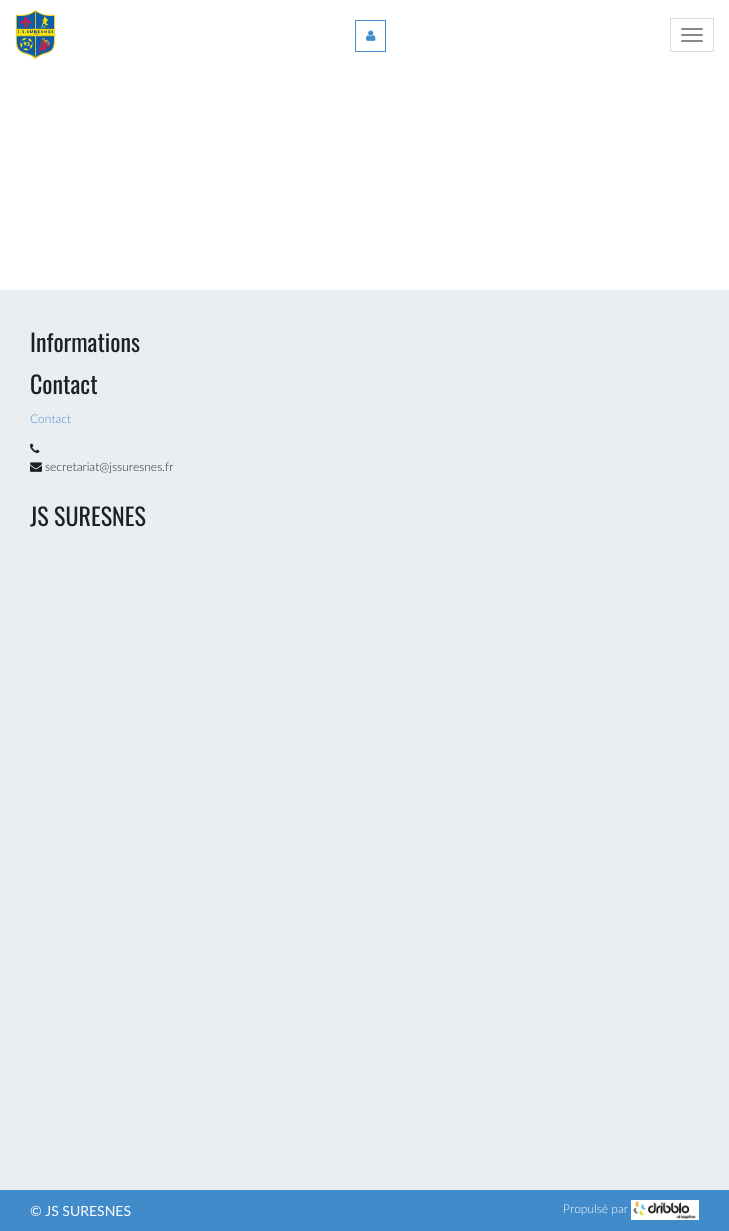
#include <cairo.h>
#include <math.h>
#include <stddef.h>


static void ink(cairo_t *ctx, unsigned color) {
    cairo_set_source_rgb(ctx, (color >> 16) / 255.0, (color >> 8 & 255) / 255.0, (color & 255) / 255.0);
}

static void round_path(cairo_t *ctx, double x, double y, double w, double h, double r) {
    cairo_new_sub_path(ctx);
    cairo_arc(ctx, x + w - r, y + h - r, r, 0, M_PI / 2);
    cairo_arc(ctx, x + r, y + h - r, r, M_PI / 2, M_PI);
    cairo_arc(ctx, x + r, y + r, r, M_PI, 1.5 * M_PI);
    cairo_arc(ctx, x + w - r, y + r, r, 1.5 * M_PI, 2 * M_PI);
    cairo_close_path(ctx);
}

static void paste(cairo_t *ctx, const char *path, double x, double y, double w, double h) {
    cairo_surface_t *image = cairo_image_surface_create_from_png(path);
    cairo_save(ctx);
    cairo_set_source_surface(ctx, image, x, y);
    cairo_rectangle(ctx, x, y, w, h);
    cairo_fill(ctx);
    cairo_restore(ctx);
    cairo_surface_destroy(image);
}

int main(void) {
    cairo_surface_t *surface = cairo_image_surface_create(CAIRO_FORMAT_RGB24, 729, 1231);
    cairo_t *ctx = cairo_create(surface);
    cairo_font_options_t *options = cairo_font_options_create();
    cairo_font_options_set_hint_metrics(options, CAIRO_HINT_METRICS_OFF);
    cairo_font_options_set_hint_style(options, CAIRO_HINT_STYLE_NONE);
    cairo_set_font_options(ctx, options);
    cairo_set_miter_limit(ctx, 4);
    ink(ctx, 0xFFFFFF);
    cairo_paint(ctx);
    paste(ctx, "media/1.png", 15, 10, 41, 50);
    cairo_rectangle(ctx, 355.5, 20.5, 30, 31);
    ink(ctx, 0x428BCA);
    cairo_set_line_width(ctx, 1);
    cairo_stroke(ctx);
    paste(ctx, "media/2.png", 366, 30, 10, 11);
    cairo_rectangle(ctx, 670.5, 18.5, 43, 33);
    ink(ctx, 0xDDDDDD);
    cairo_stroke(ctx);
    ink(ctx, 0x888888);
    round_path(ctx, 681, 28, 22, 2, 1);
    cairo_fill(ctx);
    round_path(ctx, 681, 34, 22, 2, 1);
    cairo_fill(ctx);
    round_path(ctx, 681, 40, 22, 2, 1);
    cairo_fill(ctx);
    ink(ctx, 0xEBEEF1);
    cairo_rectangle(ctx, 0, 290, 729, 900);
    cairo_fill(ctx);
    cairo_select_font_face(ctx, "Oswald", CAIRO_FONT_SLANT_NORMAL, CAIRO_FONT_WEIGHT_NORMAL);
    cairo_set_font_size(ctx, 24);
    ink(ctx, 0x1D2127);
    cairo_move_to(ctx, 30, 352);
    cairo_show_text(ctx, "Informations");
    cairo_move_to(ctx, 30, 394);
    cairo_show_text(ctx, "Contact");
    cairo_select_font_face(ctx, "Lato Light", CAIRO_FONT_SLANT_NORMAL, CAIRO_FONT_WEIGHT_NORMAL);
    cairo_set_font_size(ctx, 12);
    ink(ctx, 0x428BCA);
    cairo_move_to(ctx, 30, 423);
    cairo_show_text(ctx, "Contact");
    paste(ctx, "media/3.png", 30, 443, 10, 10);
    paste(ctx, "media/4.png", 30, 462, 12, 10);
    ink(ctx, 0x1D2127);
    cairo_move_to(ctx, 45, 471);
    cairo_show_text(ctx, "secretariat@jssuresnes.fr");
    cairo_select_font_face(ctx, "Oswald", CAIRO_FONT_SLANT_NORMAL, CAIRO_FONT_WEIGHT_NORMAL);
    cairo_set_font_size(ctx, 24);
    cairo_move_to(ctx, 30, 526);
    cairo_show_text(ctx, "JS SURESNES");
    ink(ctx, 0x428BCA);
    cairo_rectangle(ctx, 0, 1190, 729, 41);
    cairo_fill(ctx);
    cairo_select_font_face(ctx, "Lato", CAIRO_FONT_SLANT_NORMAL, CAIRO_FONT_WEIGHT_NORMAL);
    cairo_set_font_size(ctx, 14);
    ink(ctx, 0xFFFFFF);
    cairo_move_to(ctx, 30, 1216);
    cairo_show_text(ctx, "© JS SURESNES");
    cairo_select_font_face(ctx, "Lato Light", CAIRO_FONT_SLANT_NORMAL, CAIRO_FONT_WEIGHT_NORMAL);
    cairo_set_font_size(ctx, 12);
    cairo_move_to(ctx, 563, 1213);
    cairo_show_text(ctx, "Propulsé par");
    paste(ctx, "media/5.png", 631, 1200, 68, 20);
    cairo_surface_write_to_png(surface, "image.png");
    cairo_font_options_destroy(options);
    cairo_destroy(ctx);
    cairo_surface_destroy(surface);
    return 0;
}
